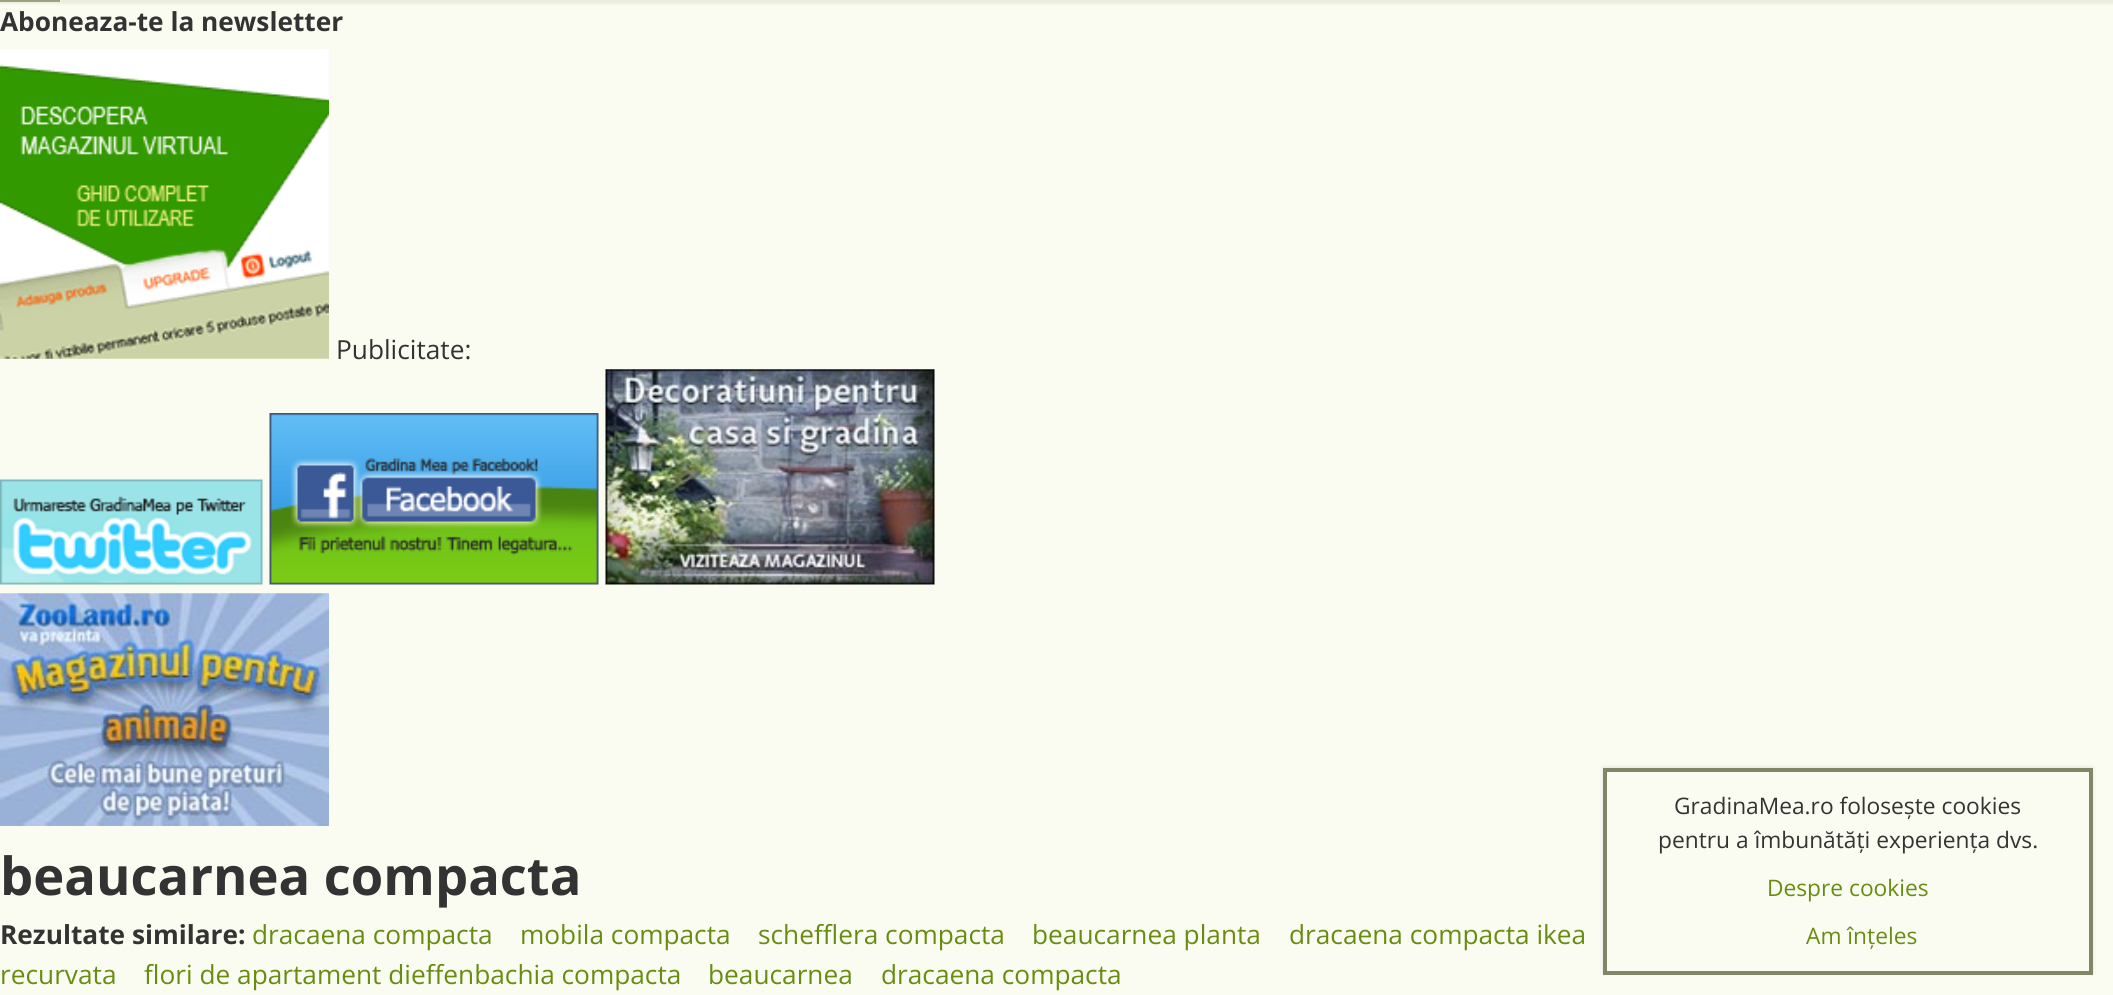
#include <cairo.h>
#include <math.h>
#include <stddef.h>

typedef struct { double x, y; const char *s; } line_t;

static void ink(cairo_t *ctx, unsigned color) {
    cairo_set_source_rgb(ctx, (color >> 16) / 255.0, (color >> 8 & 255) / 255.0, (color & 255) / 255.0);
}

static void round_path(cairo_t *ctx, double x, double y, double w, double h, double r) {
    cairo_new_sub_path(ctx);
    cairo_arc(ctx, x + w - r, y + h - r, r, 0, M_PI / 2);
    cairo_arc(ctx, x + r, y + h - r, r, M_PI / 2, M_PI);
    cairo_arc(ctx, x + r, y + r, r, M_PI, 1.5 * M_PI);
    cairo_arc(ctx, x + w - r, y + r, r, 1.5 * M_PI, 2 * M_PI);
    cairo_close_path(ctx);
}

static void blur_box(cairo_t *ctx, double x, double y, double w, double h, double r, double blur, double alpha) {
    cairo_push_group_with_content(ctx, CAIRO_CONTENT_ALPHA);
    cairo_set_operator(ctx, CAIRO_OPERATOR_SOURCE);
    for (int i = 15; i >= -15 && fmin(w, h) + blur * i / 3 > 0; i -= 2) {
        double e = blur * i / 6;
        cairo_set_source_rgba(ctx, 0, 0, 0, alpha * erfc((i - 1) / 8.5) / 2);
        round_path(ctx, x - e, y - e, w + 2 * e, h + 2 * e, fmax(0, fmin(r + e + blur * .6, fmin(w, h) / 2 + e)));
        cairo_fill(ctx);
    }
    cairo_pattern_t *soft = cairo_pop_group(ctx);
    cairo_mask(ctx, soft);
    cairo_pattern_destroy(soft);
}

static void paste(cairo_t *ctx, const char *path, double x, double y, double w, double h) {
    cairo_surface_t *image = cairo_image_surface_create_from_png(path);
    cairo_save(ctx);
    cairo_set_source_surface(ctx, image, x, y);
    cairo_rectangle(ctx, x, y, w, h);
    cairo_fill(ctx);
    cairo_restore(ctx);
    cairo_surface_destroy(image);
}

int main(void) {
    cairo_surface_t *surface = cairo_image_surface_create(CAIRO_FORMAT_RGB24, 2113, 995);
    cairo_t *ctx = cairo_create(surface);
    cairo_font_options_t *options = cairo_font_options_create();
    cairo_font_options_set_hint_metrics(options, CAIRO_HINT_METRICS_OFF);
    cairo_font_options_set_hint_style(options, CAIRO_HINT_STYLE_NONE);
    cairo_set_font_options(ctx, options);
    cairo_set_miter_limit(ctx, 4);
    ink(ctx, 0xFBFCF1);
    cairo_paint(ctx);
    ink(ctx, 0x969B7A);
    cairo_rectangle(ctx, 0, 0, 60, 2);
    cairo_fill(ctx);
    ink(ctx, 0xB2B892);
    blur_box(ctx, -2, -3, 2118, 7, 0, 1, 0.2);
    cairo_select_font_face(ctx, "Open Sans", CAIRO_FONT_SLANT_NORMAL, CAIRO_FONT_WEIGHT_BOLD);
    cairo_set_font_size(ctx, 26.25);
    ink(ctx, 0x333333);
    cairo_move_to(ctx, 0, 31);
    cairo_show_text(ctx, "Aboneaza-te la newsletter");
    paste(ctx, "media/1.png", 0, 49, 329, 310);
    cairo_select_font_face(ctx, "Open Sans", CAIRO_FONT_SLANT_NORMAL, CAIRO_FONT_WEIGHT_NORMAL);
    cairo_move_to(ctx, 336, 359);
    cairo_show_text(ctx, "Publicitate:");
    paste(ctx, "media/2.png", 0, 479, 263, 106);
    paste(ctx, "media/3.png", 269, 413, 330, 172);
    paste(ctx, "media/4.png", 605, 369, 330, 216);
    paste(ctx, "media/5.png", 0, 593, 329, 233);
    cairo_select_font_face(ctx, "Open Sans", CAIRO_FONT_SLANT_NORMAL, CAIRO_FONT_WEIGHT_BOLD);
    cairo_set_font_size(ctx, 52.5);
    cairo_move_to(ctx, 0, 895);
    cairo_show_text(ctx, "beaucarnea compacta");
    cairo_set_font_size(ctx, 26.25);
    cairo_move_to(ctx, 0, 944);
    cairo_show_text(ctx, "Rezultate similare:");
    cairo_select_font_face(ctx, "Open Sans", CAIRO_FONT_SLANT_NORMAL, CAIRO_FONT_WEIGHT_NORMAL);
    ink(ctx, 0x688C11);
    {
        static const line_t items[] = {
            {252, 944, "dracaena compacta"},
            {520, 944, "mobila compacta"},
            {758, 944, "schefflera compacta"},
            {1032, 944, "beaucarnea planta"},
            {1289, 944, "dracaena compacta ikea"},
            {0, 984, "recurvata"},
            {144, 984, "flori de apartament dieffenbachia compacta"},
            {708, 984, "beaucarnea"},
            {881, 984, "dracaena compacta"},
        };
        for (size_t i = 0; i < sizeof items / sizeof *items; i++) {
            cairo_move_to(ctx, items[i].x, items[i].y);
            cairo_show_text(ctx, items[i].s);
        }
    }
    ink(ctx, 0x000000);
    blur_box(ctx, 1603, 767, 490, 206, 0, 2, 0.1);
    ink(ctx, 0xFBFCF1);
    cairo_rectangle(ctx, 1605, 770, 486, 203);
    cairo_fill_preserve(ctx);
    ink(ctx, 0x818669);
    cairo_set_line_width(ctx, 4);
    cairo_stroke(ctx);
    cairo_set_font_size(ctx, 22.75);
    ink(ctx, 0x333333);
    cairo_move_to(ctx, 1674, 814);
    cairo_show_text(ctx, "GradinaMea.ro folosește cookies");
    cairo_move_to(ctx, 1658, 848);
    cairo_show_text(ctx, "pentru a îmbunătăți experiența dvs.");
    ink(ctx, 0x688C11);
    cairo_move_to(ctx, 1767, 896);
    cairo_show_text(ctx, "Despre cookies");
    cairo_move_to(ctx, 1806, 944);
    cairo_show_text(ctx, "Am înțeles");
    cairo_surface_write_to_png(surface, "image.png");
    cairo_font_options_destroy(options);
    cairo_destroy(ctx);
    cairo_surface_destroy(surface);
    return 0;
}
